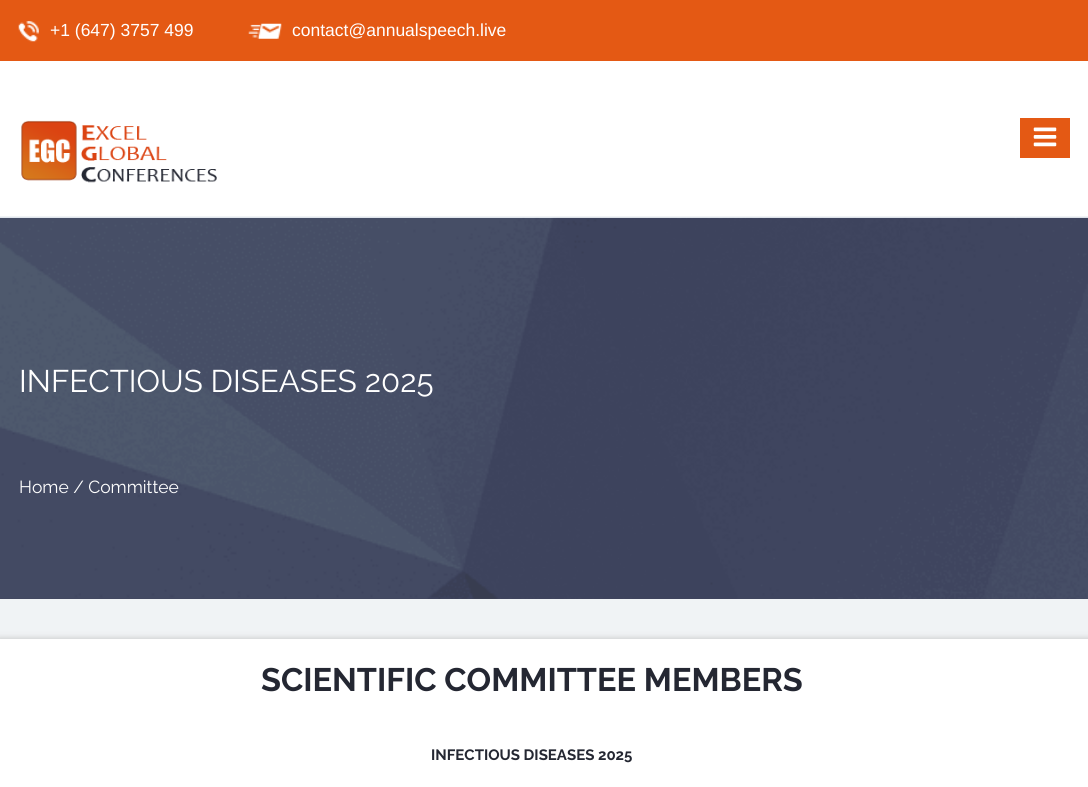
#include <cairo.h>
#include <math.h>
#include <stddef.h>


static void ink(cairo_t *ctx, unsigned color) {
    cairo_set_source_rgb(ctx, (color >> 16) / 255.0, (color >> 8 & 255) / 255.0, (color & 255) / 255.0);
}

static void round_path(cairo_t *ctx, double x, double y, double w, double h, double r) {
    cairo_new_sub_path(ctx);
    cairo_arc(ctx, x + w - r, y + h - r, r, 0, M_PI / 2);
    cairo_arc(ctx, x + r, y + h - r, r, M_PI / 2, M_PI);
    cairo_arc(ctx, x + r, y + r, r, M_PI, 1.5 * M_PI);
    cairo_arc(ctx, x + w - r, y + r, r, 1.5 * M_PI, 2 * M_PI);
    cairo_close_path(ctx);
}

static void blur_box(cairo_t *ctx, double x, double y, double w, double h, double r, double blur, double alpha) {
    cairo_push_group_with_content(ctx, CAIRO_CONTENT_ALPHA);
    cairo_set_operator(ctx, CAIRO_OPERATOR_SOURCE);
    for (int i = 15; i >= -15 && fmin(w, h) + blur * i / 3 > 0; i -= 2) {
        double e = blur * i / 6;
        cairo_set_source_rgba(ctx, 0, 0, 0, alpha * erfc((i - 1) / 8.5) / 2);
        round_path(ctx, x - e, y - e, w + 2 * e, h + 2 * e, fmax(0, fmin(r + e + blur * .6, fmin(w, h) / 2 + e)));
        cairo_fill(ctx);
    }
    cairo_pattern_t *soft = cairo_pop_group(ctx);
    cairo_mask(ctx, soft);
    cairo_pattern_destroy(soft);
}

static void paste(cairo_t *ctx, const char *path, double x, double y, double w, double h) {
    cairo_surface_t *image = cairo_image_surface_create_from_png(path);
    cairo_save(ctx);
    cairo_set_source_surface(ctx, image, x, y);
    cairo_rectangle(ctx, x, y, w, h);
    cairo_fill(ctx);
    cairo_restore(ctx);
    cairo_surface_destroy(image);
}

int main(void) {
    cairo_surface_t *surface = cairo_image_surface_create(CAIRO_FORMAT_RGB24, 1088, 787);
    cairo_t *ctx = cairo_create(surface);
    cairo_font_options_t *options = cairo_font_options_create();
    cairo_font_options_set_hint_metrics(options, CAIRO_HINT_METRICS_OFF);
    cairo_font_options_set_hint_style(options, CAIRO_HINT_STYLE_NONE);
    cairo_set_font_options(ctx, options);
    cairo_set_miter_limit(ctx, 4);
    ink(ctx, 0xF0F3F5);
    cairo_paint(ctx);
    ink(ctx, 0xE45914);
    cairo_rectangle(ctx, 0, 0, 1088, 61);
    cairo_fill(ctx);
    paste(ctx, "media/1.png", 18, 21, 21, 21);
    cairo_select_font_face(ctx, "Liberation Sans", CAIRO_FONT_SLANT_NORMAL, CAIRO_FONT_WEIGHT_NORMAL);
    cairo_set_font_size(ctx, 17.5);
    ink(ctx, 0xFFFFFF);
    cairo_move_to(ctx, 50, 36);
    cairo_show_text(ctx, "+1 (647) 3757 499");
    paste(ctx, "media/2.png", 248, 23, 34, 16);
    cairo_move_to(ctx, 292, 36);
    cairo_show_text(ctx, "contact@annualspeech.live");
    cairo_rectangle(ctx, 0, 61, 1088, 155);
    cairo_fill(ctx);
    paste(ctx, "media/3.png", 21, 120, 196, 63);
    ink(ctx, 0xE45914);
    cairo_rectangle(ctx, 1020, 118, 50, 40);
    cairo_fill(ctx);
    paste(ctx, "media/4.png", 1033, 127, 24, 20);
    ink(ctx, 0x434758);
    cairo_rectangle(ctx, 0, 218, 1088, 381);
    cairo_fill(ctx);
    paste(ctx, "media/5.png", 0, 217, 1088, 382);
    cairo_select_font_face(ctx, "Raleway", CAIRO_FONT_SLANT_NORMAL, CAIRO_FONT_WEIGHT_NORMAL);
    cairo_set_font_size(ctx, 31.25);
    ink(ctx, 0xFFFFFF);
    cairo_move_to(ctx, 19, 392);
    cairo_show_text(ctx, "INFECTIOUS DISEASES 2025");
    cairo_set_font_size(ctx, 17.5);
    cairo_move_to(ctx, 19, 493);
    cairo_show_text(ctx, "Home / Committee");
    ink(ctx, 0xCCCCCC);
    blur_box(ctx, -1, 638, 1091, 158, 0, 3, 1);
    ink(ctx, 0xFFFFFF);
    cairo_rectangle(ctx, 0, 639, 1088, 148);
    cairo_fill(ctx);
    cairo_select_font_face(ctx, "Raleway", CAIRO_FONT_SLANT_NORMAL, CAIRO_FONT_WEIGHT_BOLD);
    cairo_set_font_size(ctx, 32.5);
    ink(ctx, 0x242732);
    cairo_move_to(ctx, 261, 691);
    cairo_show_text(ctx, "SCIENTIFIC COMMITTEE MEMBERS");
    cairo_set_font_size(ctx, 15);
    cairo_move_to(ctx, 431, 760);
    cairo_show_text(ctx, "INFECTIOUS DISEASES 2025");
    cairo_surface_write_to_png(surface, "image.png");
    cairo_font_options_destroy(options);
    cairo_destroy(ctx);
    cairo_surface_destroy(surface);
    return 0;
}
